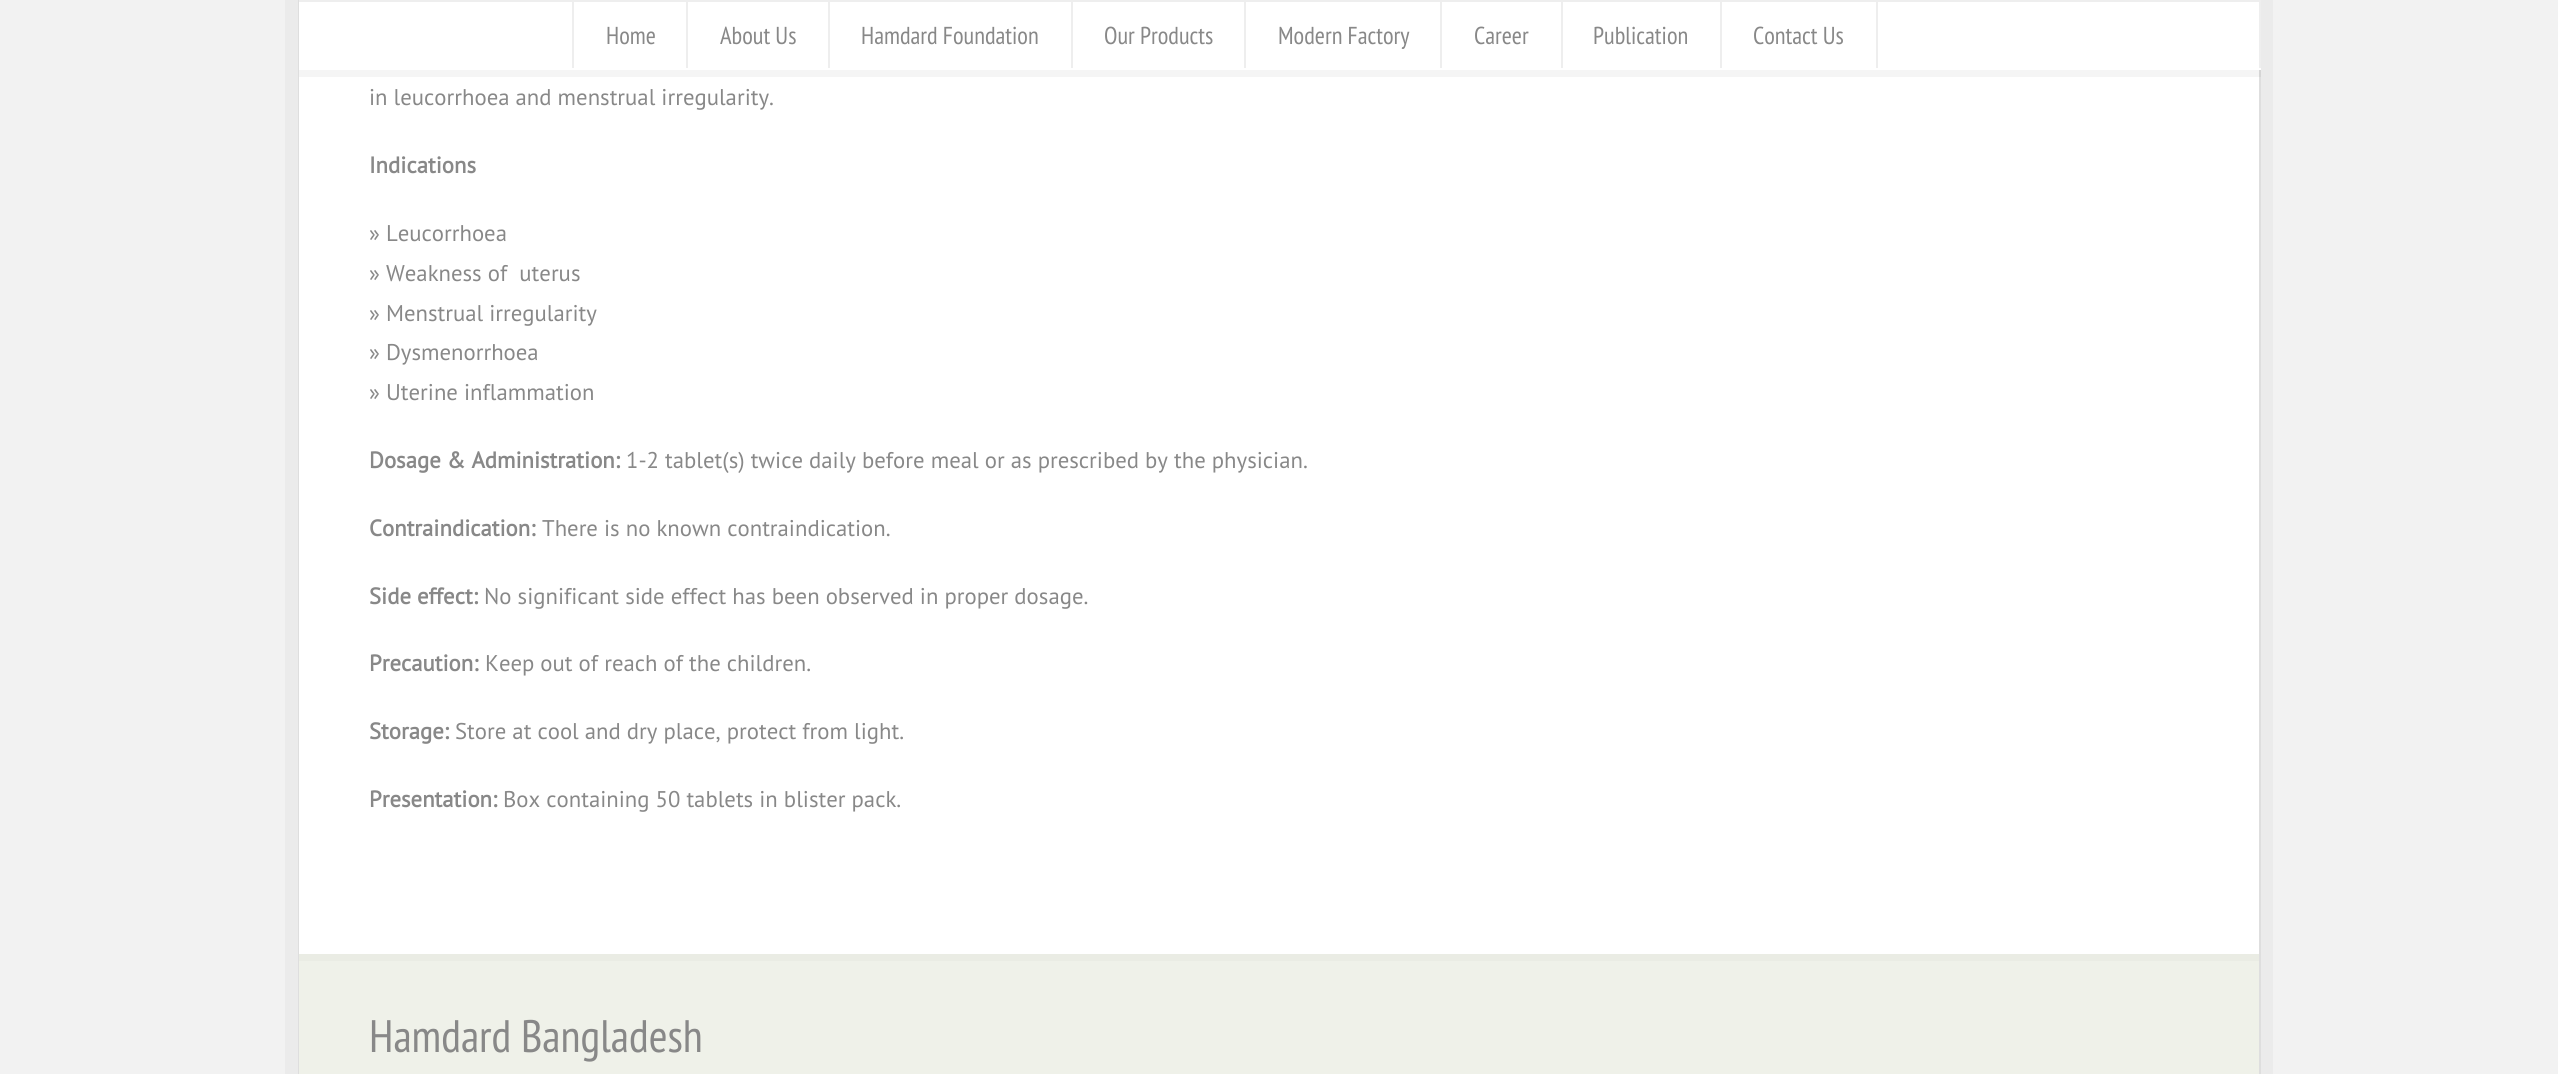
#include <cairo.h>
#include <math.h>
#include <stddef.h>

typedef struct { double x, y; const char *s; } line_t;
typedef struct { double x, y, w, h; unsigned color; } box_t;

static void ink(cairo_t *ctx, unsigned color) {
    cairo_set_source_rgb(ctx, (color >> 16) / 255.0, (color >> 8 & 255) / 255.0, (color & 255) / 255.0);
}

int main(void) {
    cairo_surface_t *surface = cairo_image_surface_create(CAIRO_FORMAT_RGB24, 2558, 1074);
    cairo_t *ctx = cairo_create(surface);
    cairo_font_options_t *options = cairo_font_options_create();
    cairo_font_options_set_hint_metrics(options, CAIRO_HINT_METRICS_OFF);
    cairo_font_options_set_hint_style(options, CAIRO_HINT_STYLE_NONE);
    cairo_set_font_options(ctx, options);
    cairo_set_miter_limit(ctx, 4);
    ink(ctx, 0xF2F2F2);
    cairo_paint(ctx);
    cairo_rectangle(ctx, 299, -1, 1961, 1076);
    ink(ctx, 0xE4E4E4);
    cairo_stroke(ctx);
    cairo_rectangle(ctx, 292, -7, 1974, 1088);
    cairo_set_source_rgba(ctx, 0, 0, 0, 0.03);
    cairo_set_line_width(ctx, 14);
    cairo_stroke(ctx);
    ink(ctx, 0xFFFFFF);
    cairo_rectangle(ctx, 299, 70, 1960, 884);
    cairo_fill(ctx);
    cairo_set_source_rgba(ctx, 0, 0, 0, 0.04);
    cairo_new_path(ctx);
    cairo_move_to(ctx, 299, 7);
    cairo_line_to(ctx, 299, 77);
    cairo_line_to(ctx, 2261, 77);
    cairo_line_to(ctx, 2261, 70);
    cairo_line_to(ctx, 299, 70);
    cairo_close_path(ctx);
    cairo_fill(ctx);
    {
        static const box_t items[] = {
            {299, 2, 1960, 66, 0xFFFFFF},
            {299, 0, 1962, 2, 0xEEEEEE},
            {2259, 0, 2, 70, 0xEEEEEE},
            {299, 68, 1962, 2, 0xFFFFFF},
            {686, 2, 2, 66, 0xEEEEEE},
            {572, 2, 2, 66, 0xEEEEEE},
        };
        for (size_t i = 0; i < sizeof items / sizeof *items; i++) {
            ink(ctx, items[i].color);
            cairo_rectangle(ctx, items[i].x, items[i].y, items[i].w, items[i].h);
            cairo_fill(ctx);
        }
    }
    cairo_select_font_face(ctx, "PT Sans Narrow", CAIRO_FONT_SLANT_NORMAL, CAIRO_FONT_WEIGHT_NORMAL);
    cairo_set_font_size(ctx, 24.5);
    ink(ctx, 0x888888);
    cairo_move_to(ctx, 606, 44);
    cairo_show_text(ctx, "Home");
    ink(ctx, 0xEEEEEE);
    cairo_rectangle(ctx, 828, 2, 2, 66);
    cairo_fill(ctx);
    ink(ctx, 0x888888);
    cairo_move_to(ctx, 720, 44);
    cairo_show_text(ctx, "About Us");
    ink(ctx, 0xEEEEEE);
    cairo_rectangle(ctx, 1071, 2, 2, 66);
    cairo_fill(ctx);
    ink(ctx, 0x888888);
    cairo_move_to(ctx, 861, 44);
    cairo_show_text(ctx, "Hamdard Foundation");
    ink(ctx, 0xEEEEEE);
    cairo_rectangle(ctx, 1244, 2, 2, 66);
    cairo_fill(ctx);
    ink(ctx, 0x888888);
    cairo_move_to(ctx, 1104, 44);
    cairo_show_text(ctx, "Our Products");
    ink(ctx, 0xEEEEEE);
    cairo_rectangle(ctx, 1440, 2, 2, 66);
    cairo_fill(ctx);
    ink(ctx, 0x888888);
    cairo_move_to(ctx, 1278, 44);
    cairo_show_text(ctx, "Modern Factory");
    ink(ctx, 0xEEEEEE);
    cairo_rectangle(ctx, 1561, 2, 2, 66);
    cairo_fill(ctx);
    ink(ctx, 0x888888);
    cairo_move_to(ctx, 1474, 44);
    cairo_show_text(ctx, "Career");
    ink(ctx, 0xEEEEEE);
    cairo_rectangle(ctx, 1720, 2, 2, 66);
    cairo_fill(ctx);
    ink(ctx, 0x888888);
    cairo_move_to(ctx, 1593, 44);
    cairo_show_text(ctx, "Publication");
    ink(ctx, 0xEEEEEE);
    cairo_rectangle(ctx, 1876, 2, 2, 66);
    cairo_fill(ctx);
    ink(ctx, 0x888888);
    cairo_move_to(ctx, 1753, 44);
    cairo_show_text(ctx, "Contact Us");
    cairo_select_font_face(ctx, "PT Sans", CAIRO_FONT_SLANT_NORMAL, CAIRO_FONT_WEIGHT_NORMAL);
    cairo_set_font_size(ctx, 22.75);
    cairo_move_to(ctx, 369, 105);
    cairo_show_text(ctx, "in leucorrhoea and menstrual irregularity.");
    cairo_select_font_face(ctx, "PT Sans", CAIRO_FONT_SLANT_NORMAL, CAIRO_FONT_WEIGHT_BOLD);
    cairo_move_to(ctx, 369, 173);
    cairo_show_text(ctx, "Indications");
    cairo_select_font_face(ctx, "PT Sans", CAIRO_FONT_SLANT_NORMAL, CAIRO_FONT_WEIGHT_NORMAL);
    {
        static const line_t items[] = {
            {369, 241, "» Leucorrhoea"},
            {369, 281, "» Weakness of  uterus"},
            {369, 321, "» Menstrual irregularity"},
            {369, 360, "» Dysmenorrhoea"},
            {369, 400, "» Uterine inflammation"},
        };
        for (size_t i = 0; i < sizeof items / sizeof *items; i++) {
            cairo_move_to(ctx, items[i].x, items[i].y);
            cairo_show_text(ctx, items[i].s);
        }
    }
    cairo_select_font_face(ctx, "PT Sans", CAIRO_FONT_SLANT_NORMAL, CAIRO_FONT_WEIGHT_BOLD);
    cairo_move_to(ctx, 369, 468);
    cairo_show_text(ctx, "Dosage & Administration:");
    cairo_select_font_face(ctx, "PT Sans", CAIRO_FONT_SLANT_NORMAL, CAIRO_FONT_WEIGHT_NORMAL);
    cairo_move_to(ctx, 626, 468);
    cairo_show_text(ctx, "1-2 tablet(s) twice daily before meal or as prescribed by the physician.");
    cairo_select_font_face(ctx, "PT Sans", CAIRO_FONT_SLANT_NORMAL, CAIRO_FONT_WEIGHT_BOLD);
    cairo_move_to(ctx, 369, 536);
    cairo_show_text(ctx, "Contraindication:");
    cairo_select_font_face(ctx, "PT Sans", CAIRO_FONT_SLANT_NORMAL, CAIRO_FONT_WEIGHT_NORMAL);
    cairo_move_to(ctx, 542, 536);
    cairo_show_text(ctx, "There is no known contraindication.");
    cairo_select_font_face(ctx, "PT Sans", CAIRO_FONT_SLANT_NORMAL, CAIRO_FONT_WEIGHT_BOLD);
    cairo_move_to(ctx, 369, 604);
    cairo_show_text(ctx, "Side effect:");
    cairo_select_font_face(ctx, "PT Sans", CAIRO_FONT_SLANT_NORMAL, CAIRO_FONT_WEIGHT_NORMAL);
    cairo_move_to(ctx, 484, 604);
    cairo_show_text(ctx, "No significant side effect has been observed in proper dosage.");
    cairo_select_font_face(ctx, "PT Sans", CAIRO_FONT_SLANT_NORMAL, CAIRO_FONT_WEIGHT_BOLD);
    cairo_move_to(ctx, 369, 671);
    cairo_show_text(ctx, "Precaution:");
    cairo_select_font_face(ctx, "PT Sans", CAIRO_FONT_SLANT_NORMAL, CAIRO_FONT_WEIGHT_NORMAL);
    cairo_move_to(ctx, 485, 671);
    cairo_show_text(ctx, "Keep out of reach of the children.");
    cairo_select_font_face(ctx, "PT Sans", CAIRO_FONT_SLANT_NORMAL, CAIRO_FONT_WEIGHT_BOLD);
    cairo_move_to(ctx, 369, 739);
    cairo_show_text(ctx, "Storage:");
    cairo_select_font_face(ctx, "PT Sans", CAIRO_FONT_SLANT_NORMAL, CAIRO_FONT_WEIGHT_NORMAL);
    cairo_move_to(ctx, 455, 739);
    cairo_show_text(ctx, "Store at cool and dry place, protect from light.");
    cairo_select_font_face(ctx, "PT Sans", CAIRO_FONT_SLANT_NORMAL, CAIRO_FONT_WEIGHT_BOLD);
    cairo_move_to(ctx, 369, 807);
    cairo_show_text(ctx, "Presentation:");
    cairo_select_font_face(ctx, "PT Sans", CAIRO_FONT_SLANT_NORMAL, CAIRO_FONT_WEIGHT_NORMAL);
    cairo_move_to(ctx, 503, 807);
    cairo_show_text(ctx, "Box containing 50 tablets in blister pack.");
    ink(ctx, 0xEFF1E9);
    cairo_rectangle(ctx, 299, 961, 1960, 113);
    cairo_fill(ctx);
    ink(ctx, 0xEAECE4);
    cairo_rectangle(ctx, 299, 954, 1960, 7);
    cairo_fill(ctx);
    cairo_select_font_face(ctx, "PT Sans Narrow", CAIRO_FONT_SLANT_NORMAL, CAIRO_FONT_WEIGHT_NORMAL);
    cairo_set_font_size(ctx, 45.5);
    ink(ctx, 0x888888);
    cairo_move_to(ctx, 369, 1052);
    cairo_show_text(ctx, "Hamdard Bangladesh");
    cairo_surface_write_to_png(surface, "image.png");
    cairo_font_options_destroy(options);
    cairo_destroy(ctx);
    cairo_surface_destroy(surface);
    return 0;
}
